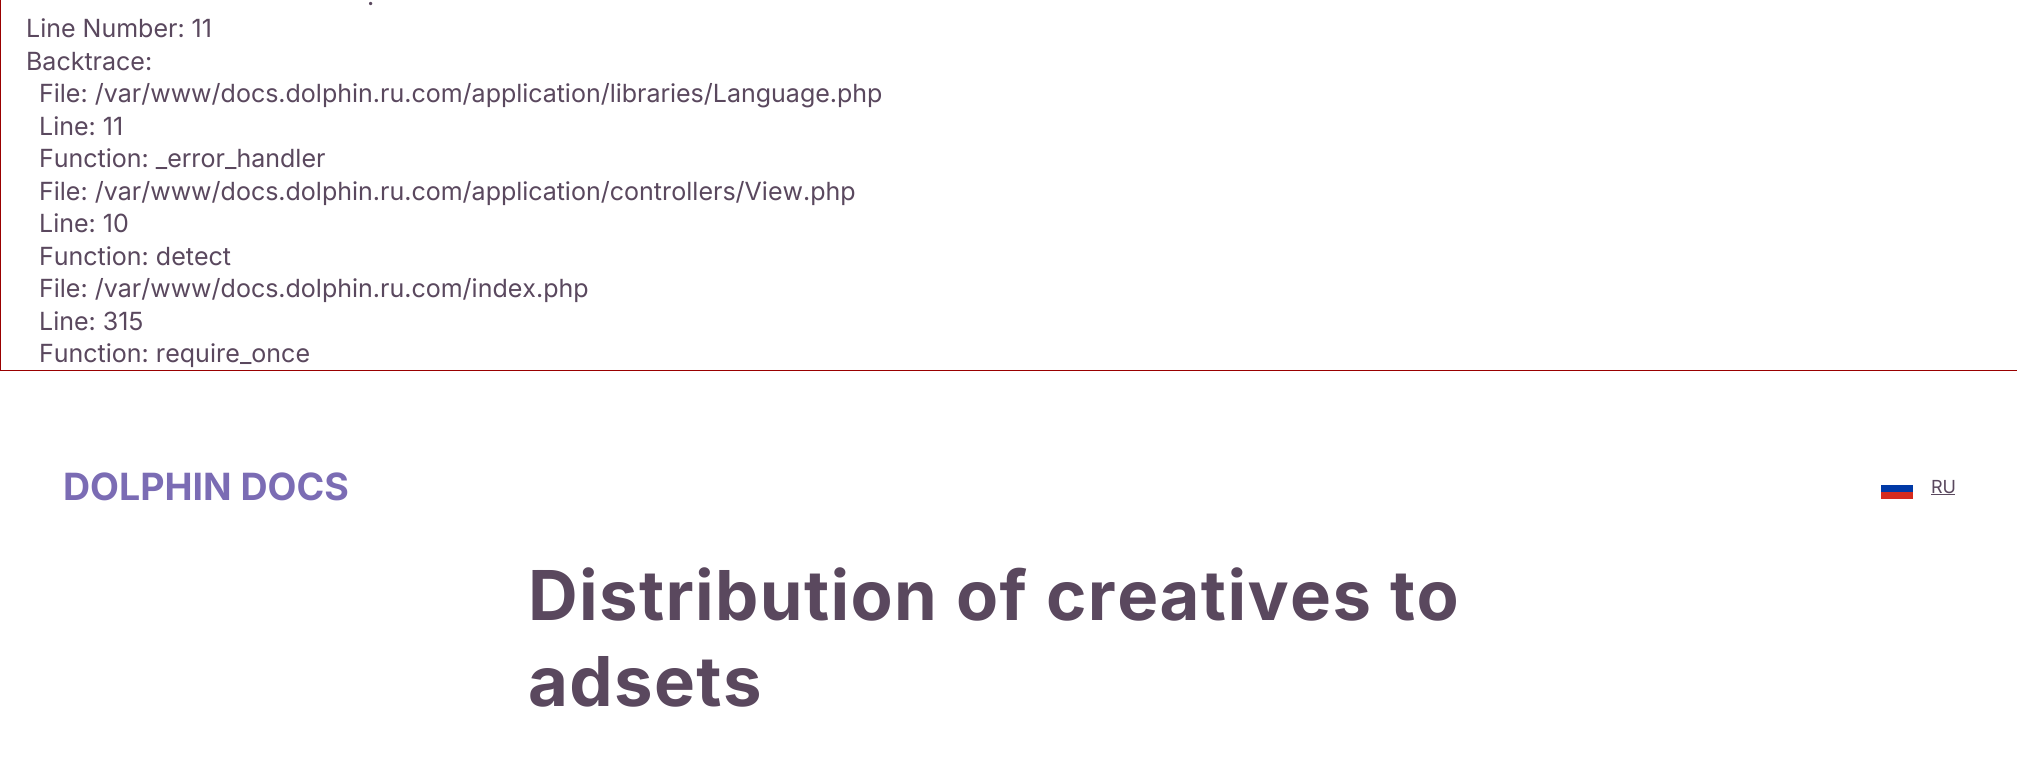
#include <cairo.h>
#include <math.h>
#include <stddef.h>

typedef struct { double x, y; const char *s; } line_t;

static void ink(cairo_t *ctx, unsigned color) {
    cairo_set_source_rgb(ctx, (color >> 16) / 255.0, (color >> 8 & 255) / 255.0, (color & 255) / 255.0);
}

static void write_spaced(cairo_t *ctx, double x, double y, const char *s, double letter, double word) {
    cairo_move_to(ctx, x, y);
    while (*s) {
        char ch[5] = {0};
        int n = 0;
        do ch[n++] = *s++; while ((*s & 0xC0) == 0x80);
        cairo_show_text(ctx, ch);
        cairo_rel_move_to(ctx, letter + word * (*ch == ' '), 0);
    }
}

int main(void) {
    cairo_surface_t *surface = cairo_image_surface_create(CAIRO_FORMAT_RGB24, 2017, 782);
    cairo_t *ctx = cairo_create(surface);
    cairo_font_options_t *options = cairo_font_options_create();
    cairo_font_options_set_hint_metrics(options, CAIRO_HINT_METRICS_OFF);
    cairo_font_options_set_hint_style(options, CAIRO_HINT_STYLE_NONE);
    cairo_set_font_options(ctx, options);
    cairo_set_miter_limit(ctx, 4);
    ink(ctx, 0xFFFFFF);
    cairo_paint(ctx);
    cairo_rectangle(ctx, 0.5, -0.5, 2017, 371);
    ink(ctx, 0x990000);
    cairo_set_line_width(ctx, 1);
    cairo_stroke(ctx);
    cairo_select_font_face(ctx, "Inter", CAIRO_FONT_SLANT_NORMAL, CAIRO_FONT_WEIGHT_NORMAL);
    cairo_set_font_size(ctx, 25);
    ink(ctx, 0x5A485E);
    {
        static const line_t items[] = {
            {367, 5, "."},
            {26, 37, "Line Number: 11"},
            {26, 70, "Backtrace:"},
            {39, 102, "File: /var/www/docs.dolphin.ru.com/application/libraries/Language.php"},
            {39, 135, "Line: 11"},
            {39, 167, "Function: _error_handler"},
            {39, 200, "File: /var/www/docs.dolphin.ru.com/application/controllers/View.php"},
            {39, 232, "Line: 10"},
            {39, 265, "Function: detect"},
            {39, 297, "File: /var/www/docs.dolphin.ru.com/index.php"},
            {39, 330, "Line: 315"},
            {39, 362, "Function: require_once"},
        };
        for (size_t i = 0; i < sizeof items / sizeof *items; i++) {
            cairo_move_to(ctx, items[i].x, items[i].y);
            cairo_show_text(ctx, items[i].s);
        }
    }
    cairo_select_font_face(ctx, "Inter", CAIRO_FONT_SLANT_NORMAL, CAIRO_FONT_WEIGHT_BOLD);
    cairo_set_font_size(ctx, 37.5);
    ink(ctx, 0x7B6CB4);
    cairo_move_to(ctx, 63, 500);
    cairo_show_text(ctx, "DOLРHIN DOCS");
    ink(ctx, 0x0039A6);
    cairo_rectangle(ctx, 1881, 485, 32, 7);
    cairo_fill(ctx);
    cairo_select_font_face(ctx, "Inter", CAIRO_FONT_SLANT_NORMAL, CAIRO_FONT_WEIGHT_NORMAL);
    cairo_set_font_size(ctx, 18);
    ink(ctx, 0x5A485E);
    cairo_move_to(ctx, 1931, 493);
    cairo_show_text(ctx, "RU");
    cairo_rectangle(ctx, 1931, 494, 24, 1);
    cairo_fill(ctx);
    ink(ctx, 0xD52B1E);
    cairo_rectangle(ctx, 1881, 492, 32, 7);
    cairo_fill(ctx);
    cairo_select_font_face(ctx, "Inter", CAIRO_FONT_SLANT_NORMAL, CAIRO_FONT_WEIGHT_BOLD);
    cairo_set_font_size(ctx, 68.75);
    ink(ctx, 0x5A485E);
    write_spaced(ctx, 528, 620, "Distribution of creatives to", 1.4, 0);
    write_spaced(ctx, 528, 706, "adsets", 1.4, 0);
    cairo_surface_write_to_png(surface, "image.png");
    cairo_font_options_destroy(options);
    cairo_destroy(ctx);
    cairo_surface_destroy(surface);
    return 0;
}
